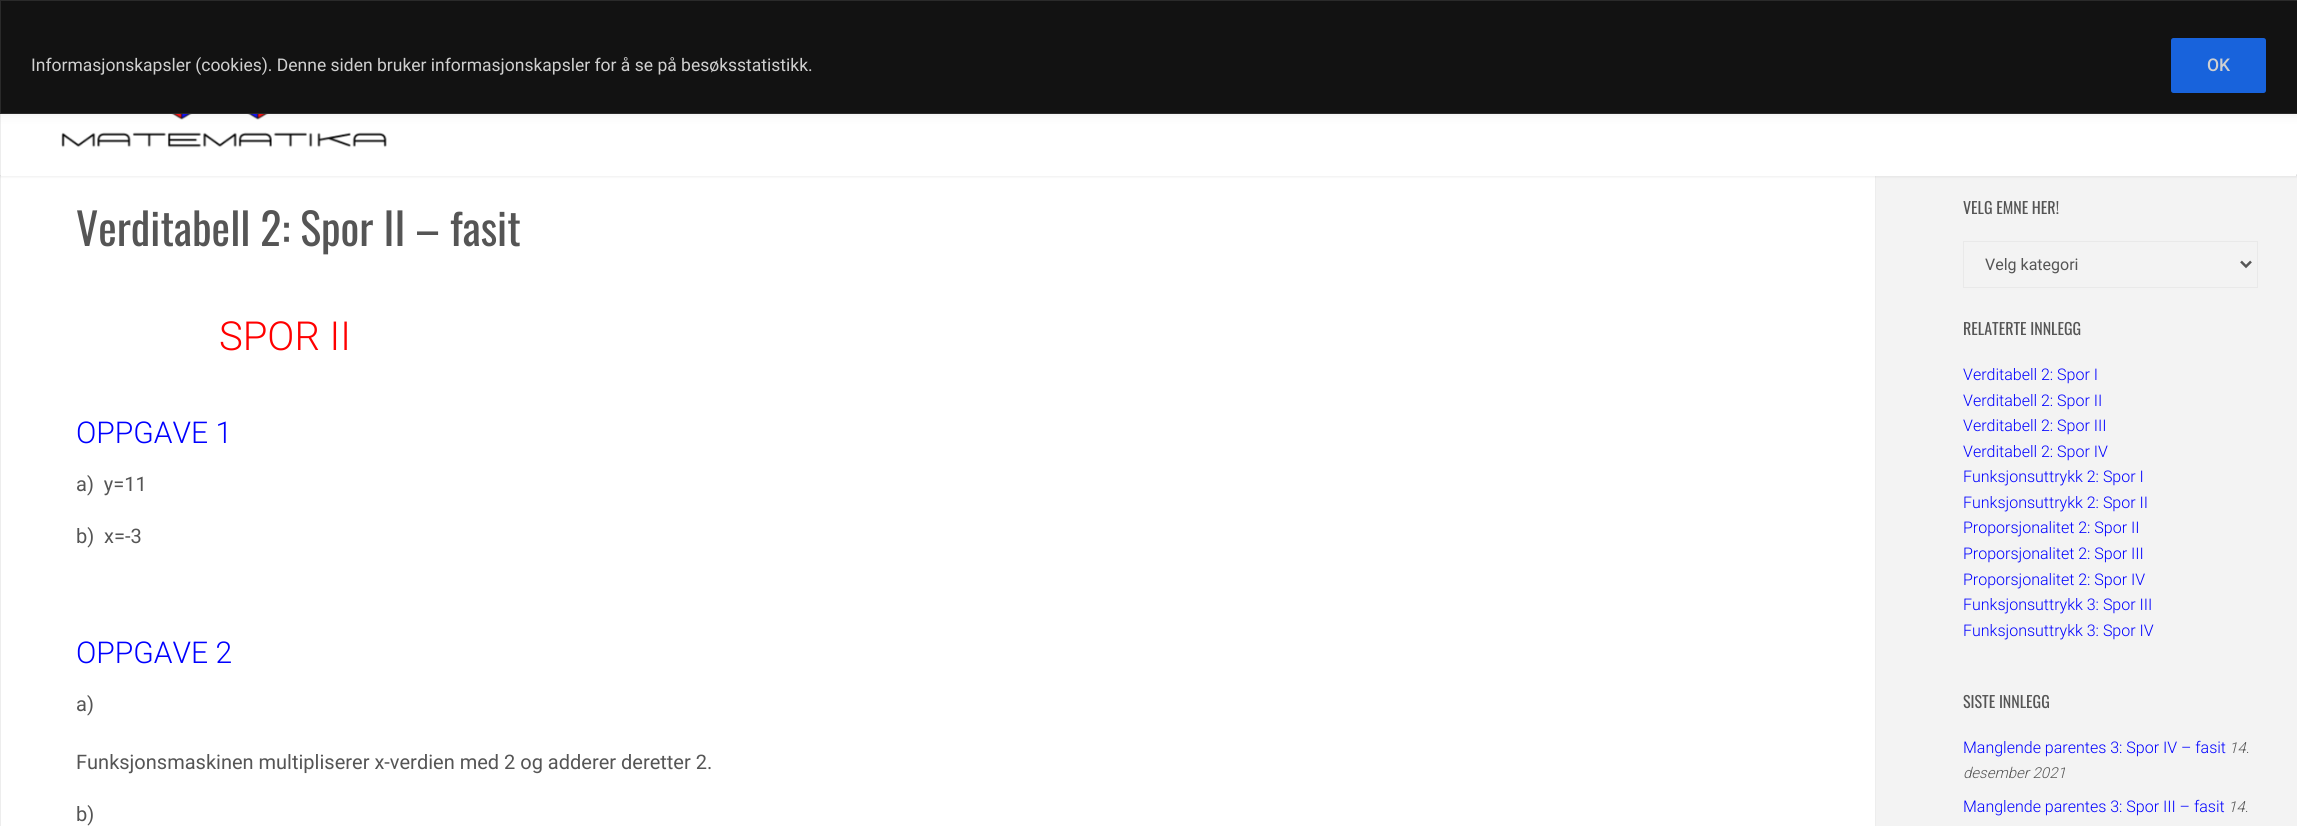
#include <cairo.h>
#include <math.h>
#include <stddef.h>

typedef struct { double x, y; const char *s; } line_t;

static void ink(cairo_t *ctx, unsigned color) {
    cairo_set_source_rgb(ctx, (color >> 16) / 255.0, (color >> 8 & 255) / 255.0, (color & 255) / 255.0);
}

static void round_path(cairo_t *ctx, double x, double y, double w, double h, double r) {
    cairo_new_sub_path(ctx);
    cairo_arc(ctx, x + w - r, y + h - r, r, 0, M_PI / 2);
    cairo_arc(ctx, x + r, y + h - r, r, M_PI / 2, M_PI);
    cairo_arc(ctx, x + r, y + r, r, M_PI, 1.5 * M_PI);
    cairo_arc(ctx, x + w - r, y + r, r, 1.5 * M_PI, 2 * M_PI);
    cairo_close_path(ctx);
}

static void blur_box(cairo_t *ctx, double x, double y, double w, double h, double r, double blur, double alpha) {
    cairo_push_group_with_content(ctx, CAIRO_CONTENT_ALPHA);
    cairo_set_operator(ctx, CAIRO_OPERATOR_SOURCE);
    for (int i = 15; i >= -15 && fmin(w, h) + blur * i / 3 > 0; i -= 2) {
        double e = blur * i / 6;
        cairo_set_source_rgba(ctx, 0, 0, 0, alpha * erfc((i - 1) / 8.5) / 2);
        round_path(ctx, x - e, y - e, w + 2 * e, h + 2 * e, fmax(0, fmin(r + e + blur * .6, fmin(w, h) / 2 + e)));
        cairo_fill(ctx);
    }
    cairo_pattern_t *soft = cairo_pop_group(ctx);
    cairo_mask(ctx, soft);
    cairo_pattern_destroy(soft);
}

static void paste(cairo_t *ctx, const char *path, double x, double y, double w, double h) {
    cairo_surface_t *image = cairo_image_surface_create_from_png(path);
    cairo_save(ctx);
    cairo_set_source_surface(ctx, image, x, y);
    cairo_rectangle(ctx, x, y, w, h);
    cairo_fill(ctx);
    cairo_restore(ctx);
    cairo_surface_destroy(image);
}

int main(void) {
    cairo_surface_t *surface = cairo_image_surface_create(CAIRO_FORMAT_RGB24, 2297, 826);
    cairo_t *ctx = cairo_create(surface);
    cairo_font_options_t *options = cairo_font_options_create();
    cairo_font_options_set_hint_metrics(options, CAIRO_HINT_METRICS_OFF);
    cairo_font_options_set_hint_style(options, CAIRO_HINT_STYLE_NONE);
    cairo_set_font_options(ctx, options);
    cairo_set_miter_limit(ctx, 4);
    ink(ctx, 0xF3F3F3);
    cairo_paint(ctx);
    ink(ctx, 0xFFFFFF);
    cairo_rectangle(ctx, 1, 176, 1874, 650);
    cairo_fill(ctx);
    cairo_rectangle(ctx, 0.5, 150.5, 1875, 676);
    ink(ctx, 0xEDEDED);
    cairo_set_line_width(ctx, 1);
    cairo_stroke(ctx);
    ink(ctx, 0x000000);
    blur_box(ctx, 0, 0, 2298, 175, 0, 2, 0.2);
    ink(ctx, 0xFFFFFF);
    cairo_rectangle(ctx, 2296, 114, 1, 60);
    cairo_fill(ctx);
    cairo_rectangle(ctx, 0.5, 0.5, 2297, 174);
    ink(ctx, 0xEDEDED);
    cairo_stroke(ctx);
    ink(ctx, 0xFFFFFF);
    cairo_rectangle(ctx, 1, 114, 2295, 62);
    cairo_fill(ctx);
    paste(ctx, "media/1.png", 61, 114, 326, 34);
    ink(ctx, 0xACABAB);
    blur_box(ctx, 0, -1, 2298, 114, 0, 6, 0.3);
    ink(ctx, 0x121212);
    cairo_rectangle(ctx, 0.5, 0.5, 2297, 113);
    cairo_fill_preserve(ctx);
    ink(ctx, 0x2A2A2A);
    cairo_stroke(ctx);
    cairo_select_font_face(ctx, "Roboto", CAIRO_FONT_SLANT_NORMAL, CAIRO_FONT_WEIGHT_NORMAL);
    cairo_set_font_size(ctx, 17.5);
    ink(ctx, 0xD0D0D0);
    cairo_move_to(ctx, 31, 71);
    cairo_show_text(ctx, "Informasjonskapsler (cookies). Denne siden bruker informasjonskapsler for å se på besøksstatistikk.");
    ink(ctx, 0x1863DC);
    round_path(ctx, 2172.5, 39.5, 92, 52, 1);
    cairo_fill_preserve(ctx);
    cairo_set_line_width(ctx, 3);
    cairo_stroke(ctx);
    cairo_select_font_face(ctx, "Roboto Medium", CAIRO_FONT_SLANT_NORMAL, CAIRO_FONT_WEIGHT_NORMAL);
    ink(ctx, 0xD0D0D0);
    cairo_move_to(ctx, 2207, 71);
    cairo_show_text(ctx, "OK");
    cairo_select_font_face(ctx, "Oswald", CAIRO_FONT_SLANT_NORMAL, CAIRO_FONT_WEIGHT_NORMAL);
    cairo_set_font_size(ctx, 44);
    ink(ctx, 0x555555);
    cairo_move_to(ctx, 76, 246);
    cairo_show_text(ctx, "Verditabell 2: Spor II – fasit");
    cairo_select_font_face(ctx, "Roboto Light", CAIRO_FONT_SLANT_NORMAL, CAIRO_FONT_WEIGHT_NORMAL);
    cairo_set_font_size(ctx, 40);
    ink(ctx, 0xFF0000);
    cairo_move_to(ctx, 219, 350);
    cairo_show_text(ctx, "SPOR II");
    cairo_set_font_size(ctx, 30);
    ink(ctx, 0x0000FF);
    cairo_move_to(ctx, 76, 443);
    cairo_show_text(ctx, "OPPGAVE 1");
    cairo_select_font_face(ctx, "Roboto", CAIRO_FONT_SLANT_NORMAL, CAIRO_FONT_WEIGHT_NORMAL);
    cairo_set_font_size(ctx, 20);
    ink(ctx, 0x555555);
    cairo_move_to(ctx, 76, 491);
    cairo_show_text(ctx, "a)  y=11");
    cairo_move_to(ctx, 76, 543);
    cairo_show_text(ctx, "b)  x=-3");
    cairo_select_font_face(ctx, "Roboto Light", CAIRO_FONT_SLANT_NORMAL, CAIRO_FONT_WEIGHT_NORMAL);
    cairo_set_font_size(ctx, 30);
    ink(ctx, 0x0000FF);
    cairo_move_to(ctx, 76, 663);
    cairo_show_text(ctx, "OPPGAVE 2");
    cairo_select_font_face(ctx, "Roboto", CAIRO_FONT_SLANT_NORMAL, CAIRO_FONT_WEIGHT_NORMAL);
    cairo_set_font_size(ctx, 20);
    ink(ctx, 0x555555);
    {
        static const line_t items[] = {
            {76, 711, "a)"},
            {76, 769, "Funksjonsmaskinen multipliserer x-verdien med 2 og adderer deretter 2."},
            {76, 821, "b)"},
        };
        for (size_t i = 0; i < sizeof items / sizeof *items; i++) {
            cairo_move_to(ctx, items[i].x, items[i].y);
            cairo_show_text(ctx, items[i].s);
        }
    }
    cairo_select_font_face(ctx, "Oswald", CAIRO_FONT_SLANT_NORMAL, CAIRO_FONT_WEIGHT_NORMAL);
    cairo_set_font_size(ctx, 16);
    cairo_move_to(ctx, 1963, 214);
    cairo_show_text(ctx, "VELG EMNE HER!");
    cairo_rectangle(ctx, 1963.5, 241.5, 294, 46);
    ink(ctx, 0xE9E9E9);
    cairo_set_line_width(ctx, 1);
    cairo_stroke(ctx);
    cairo_new_path(ctx);
    cairo_move_to(ctx, 2241, 261.5);
    cairo_line_to(ctx, 2246, 266.5);
    cairo_line_to(ctx, 2251, 261.5);
    ink(ctx, 0x555555);
    cairo_set_line_width(ctx, 2.5);
    cairo_stroke(ctx);
    cairo_select_font_face(ctx, "Roboto", CAIRO_FONT_SLANT_NORMAL, CAIRO_FONT_WEIGHT_NORMAL);
    cairo_move_to(ctx, 1985, 270);
    cairo_show_text(ctx, "Velg kategori");
    cairo_select_font_face(ctx, "Oswald", CAIRO_FONT_SLANT_NORMAL, CAIRO_FONT_WEIGHT_NORMAL);
    cairo_move_to(ctx, 1963, 335);
    cairo_show_text(ctx, "RELATERTE INNLEGG");
    cairo_select_font_face(ctx, "Roboto Light", CAIRO_FONT_SLANT_NORMAL, CAIRO_FONT_WEIGHT_NORMAL);
    ink(ctx, 0x0000FF);
    {
        static const line_t items[] = {
            {1963, 380, "Verditabell 2: Spor I"},
            {1963, 406, "Verditabell 2: Spor II"},
            {1963, 431, "Verditabell 2: Spor III"},
            {1963, 457, "Verditabell 2: Spor IV"},
            {1963, 482, "Funksjonsuttrykk 2: Spor I"},
            {1963, 508, "Funksjonsuttrykk 2: Spor II"},
            {1963, 533, "Proporsjonalitet 2: Spor II"},
            {1963, 559, "Proporsjonalitet 2: Spor III"},
            {1963, 585, "Proporsjonalitet 2: Spor IV"},
            {1963, 610, "Funksjonsuttrykk 3: Spor III"},
            {1963, 636, "Funksjonsuttrykk 3: Spor IV"},
        };
        for (size_t i = 0; i < sizeof items / sizeof *items; i++) {
            cairo_move_to(ctx, items[i].x, items[i].y);
            cairo_show_text(ctx, items[i].s);
        }
    }
    cairo_select_font_face(ctx, "Oswald", CAIRO_FONT_SLANT_NORMAL, CAIRO_FONT_WEIGHT_NORMAL);
    ink(ctx, 0x555555);
    cairo_move_to(ctx, 1963, 708);
    cairo_show_text(ctx, "SISTE INNLEGG");
    cairo_select_font_face(ctx, "Roboto Light", CAIRO_FONT_SLANT_NORMAL, CAIRO_FONT_WEIGHT_NORMAL);
    ink(ctx, 0x0000FF);
    cairo_move_to(ctx, 1963, 753);
    cairo_show_text(ctx, "Manglende parentes 3: Spor IV – fasit");
    cairo_select_font_face(ctx, "Roboto Light", CAIRO_FONT_SLANT_ITALIC, CAIRO_FONT_WEIGHT_NORMAL);
    cairo_set_font_size(ctx, 15);
    ink(ctx, 0x555555);
    cairo_move_to(ctx, 2229, 753);
    cairo_show_text(ctx, "14.");
    cairo_move_to(ctx, 1963, 778);
    cairo_show_text(ctx, "desember 2021");
    cairo_select_font_face(ctx, "Roboto Light", CAIRO_FONT_SLANT_NORMAL, CAIRO_FONT_WEIGHT_NORMAL);
    cairo_set_font_size(ctx, 16);
    ink(ctx, 0x0000FF);
    cairo_move_to(ctx, 1963, 812);
    cairo_show_text(ctx, "Manglende parentes 3: Spor III – fasit");
    cairo_select_font_face(ctx, "Roboto Light", CAIRO_FONT_SLANT_ITALIC, CAIRO_FONT_WEIGHT_NORMAL);
    cairo_set_font_size(ctx, 15);
    ink(ctx, 0x555555);
    cairo_move_to(ctx, 2228, 812);
    cairo_show_text(ctx, "14.");
    cairo_surface_write_to_png(surface, "image.png");
    cairo_font_options_destroy(options);
    cairo_destroy(ctx);
    cairo_surface_destroy(surface);
    return 0;
}
